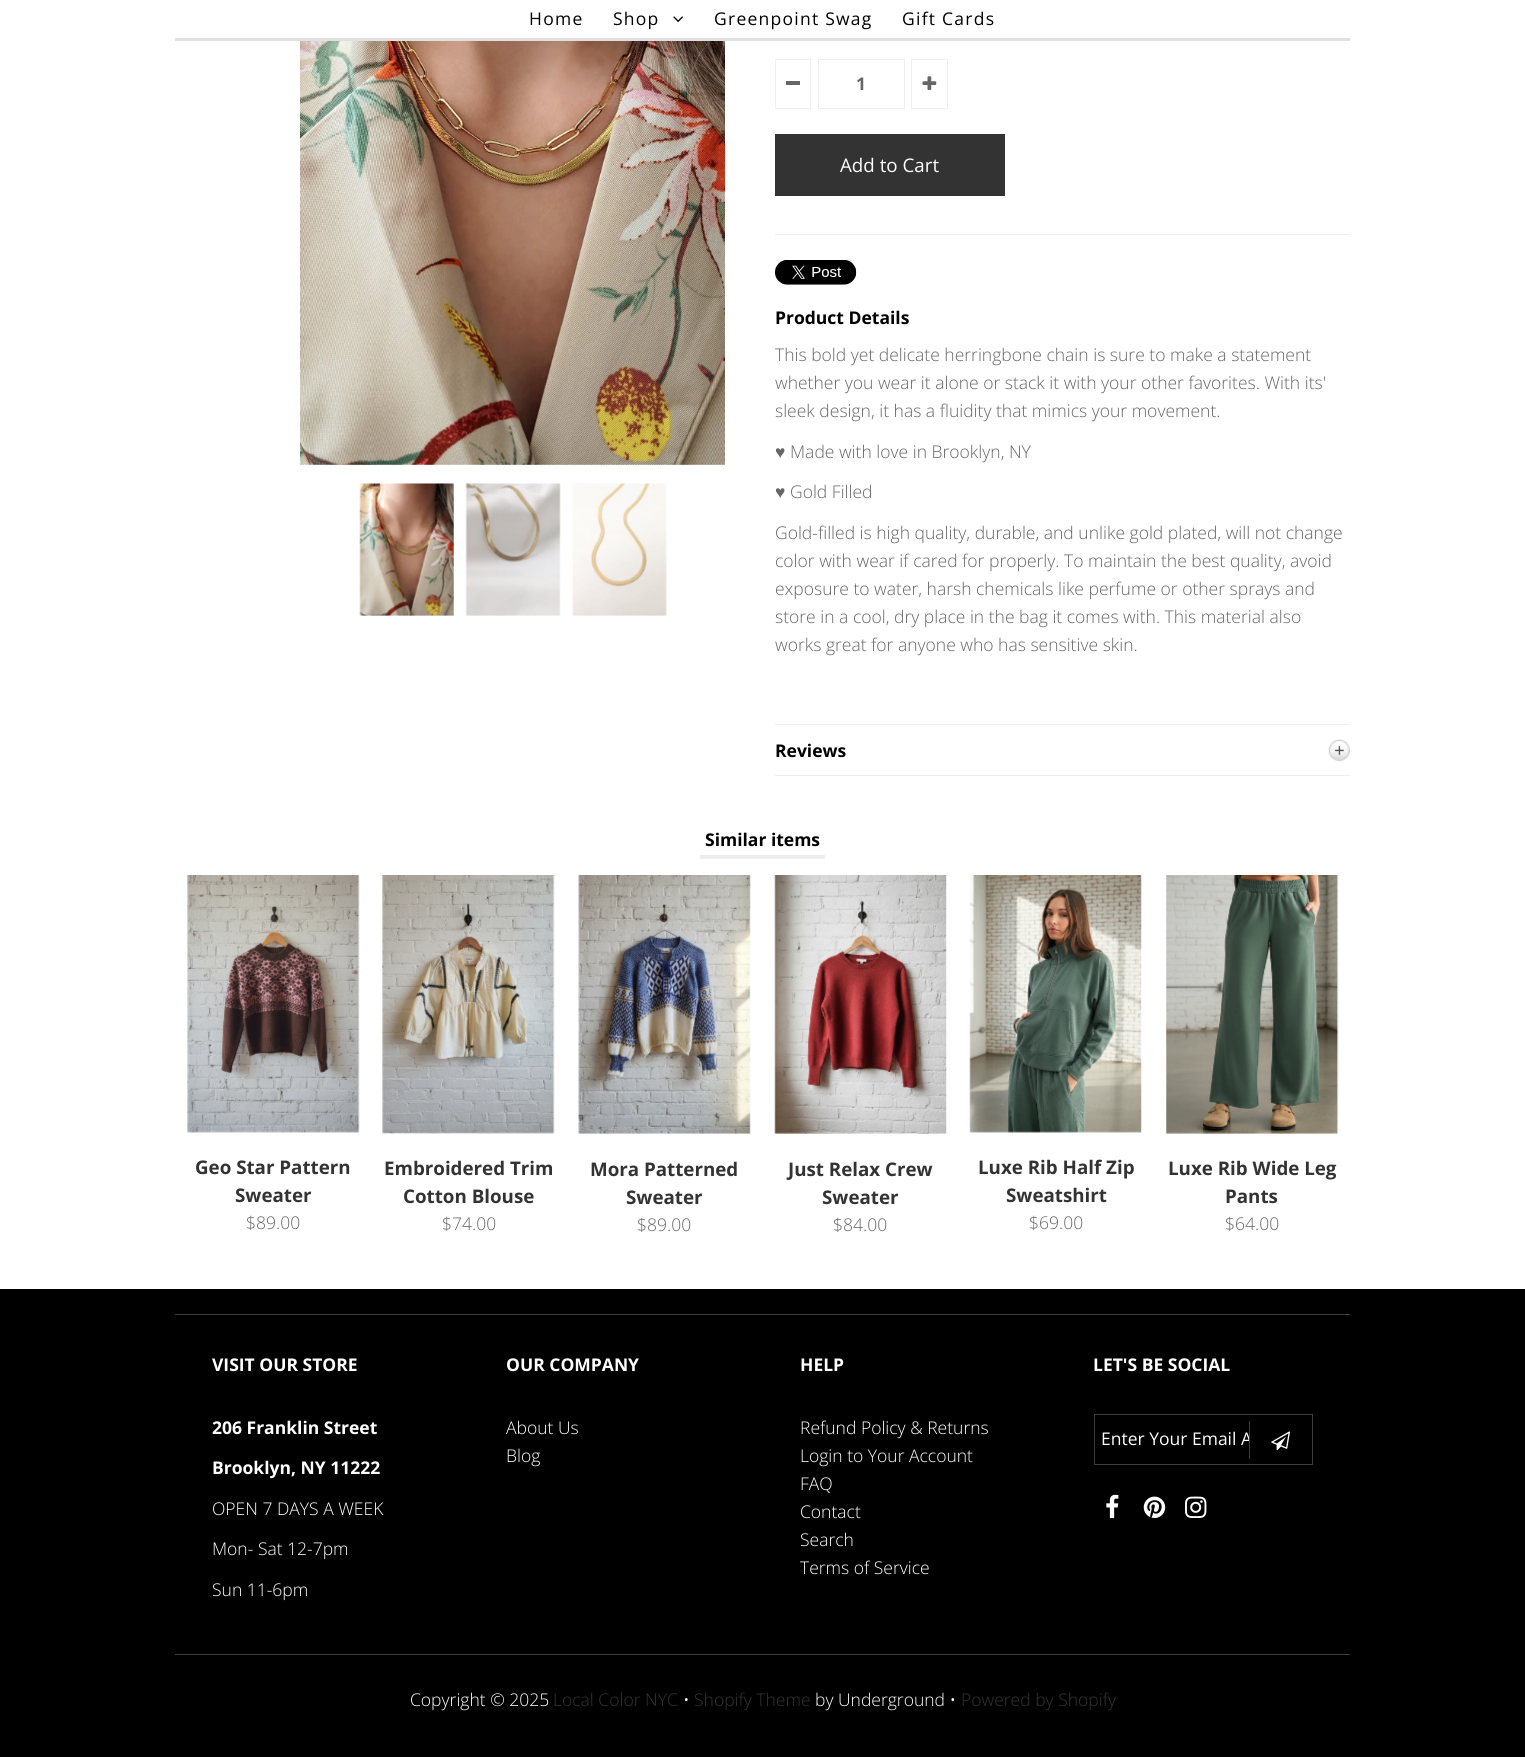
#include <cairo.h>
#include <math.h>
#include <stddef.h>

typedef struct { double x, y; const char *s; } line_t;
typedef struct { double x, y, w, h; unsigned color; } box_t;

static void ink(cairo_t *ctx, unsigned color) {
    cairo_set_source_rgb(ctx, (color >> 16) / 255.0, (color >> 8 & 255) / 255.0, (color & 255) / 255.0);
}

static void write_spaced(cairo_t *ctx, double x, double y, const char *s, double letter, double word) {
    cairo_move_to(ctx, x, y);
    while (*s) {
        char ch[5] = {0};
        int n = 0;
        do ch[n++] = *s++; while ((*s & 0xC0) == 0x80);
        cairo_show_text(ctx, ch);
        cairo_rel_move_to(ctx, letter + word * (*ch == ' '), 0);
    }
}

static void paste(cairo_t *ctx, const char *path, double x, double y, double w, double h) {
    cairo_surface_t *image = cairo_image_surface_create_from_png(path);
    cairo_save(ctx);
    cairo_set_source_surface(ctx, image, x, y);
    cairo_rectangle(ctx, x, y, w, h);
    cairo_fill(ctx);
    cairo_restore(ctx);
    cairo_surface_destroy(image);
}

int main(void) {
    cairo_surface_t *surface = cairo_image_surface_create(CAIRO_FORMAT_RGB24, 1525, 1757);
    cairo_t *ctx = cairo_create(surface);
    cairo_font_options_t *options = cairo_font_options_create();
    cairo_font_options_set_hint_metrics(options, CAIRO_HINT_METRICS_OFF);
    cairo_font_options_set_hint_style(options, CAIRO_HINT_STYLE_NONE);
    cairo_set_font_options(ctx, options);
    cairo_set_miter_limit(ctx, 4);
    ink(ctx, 0xFFFFFF);
    cairo_paint(ctx);
    ink(ctx, 0xE0E0E0);
    cairo_rectangle(ctx, 175, 38, 1175, 3);
    cairo_fill(ctx);
    cairo_select_font_face(ctx, "Open Sans", CAIRO_FONT_SLANT_NORMAL, CAIRO_FONT_WEIGHT_NORMAL);
    cairo_set_font_size(ctx, 17.5);
    ink(ctx, 0x000000);
    write_spaced(ctx, 529, 25, "Home", 1.25, 0);
    write_spaced(ctx, 613, 25, "Shop", 1.25, 0);
    paste(ctx, "media/1.png", 673, 16, 10, 6);
    write_spaced(ctx, 714, 25, "Greenpoint Swag", 1.25, 0);
    write_spaced(ctx, 902, 25, "Gift Cards", 1.25, 0);
    paste(ctx, "media/2.png", 300, 41, 425, 424);
    paste(ctx, "media/3.png", 359, 483, 95, 133);
    paste(ctx, "media/4.png", 465, 483, 96, 133);
    paste(ctx, "media/5.png", 572, 483, 95, 133);
    cairo_rectangle(ctx, 775.5, 59.5, 35, 49);
    ink(ctx, 0xF0F0F0);
    cairo_set_line_width(ctx, 1);
    cairo_stroke(ctx);
    ink(ctx, 0x666666);
    cairo_rectangle(ctx, 786, 81, 14, 4);
    cairo_fill(ctx);
    cairo_rectangle(ctx, 818.5, 59.5, 86, 49);
    ink(ctx, 0xEEEEEE);
    cairo_stroke(ctx);
    cairo_select_font_face(ctx, "Open Sans", CAIRO_FONT_SLANT_NORMAL, CAIRO_FONT_WEIGHT_BOLD);
    ink(ctx, 0x666666);
    cairo_move_to(ctx, 856, 90);
    cairo_show_text(ctx, "1");
    cairo_rectangle(ctx, 911.5, 59.5, 36, 49);
    ink(ctx, 0xF0F0F0);
    cairo_stroke(ctx);
    paste(ctx, "media/6.png", 922, 76, 15, 14);
    ink(ctx, 0x333333);
    cairo_rectangle(ctx, 775, 134, 230, 62);
    cairo_fill(ctx);
    cairo_select_font_face(ctx, "Open Sans", CAIRO_FONT_SLANT_NORMAL, CAIRO_FONT_WEIGHT_NORMAL);
    cairo_set_font_size(ctx, 18.75);
    ink(ctx, 0xFFFFFF);
    cairo_move_to(ctx, 840, 172);
    cairo_show_text(ctx, "Add to Cart");
    ink(ctx, 0xEEEEEE);
    cairo_rectangle(ctx, 775, 234, 575, 1);
    cairo_fill(ctx);
    cairo_rectangle(ctx, 775, 775, 575, 1);
    cairo_fill(ctx);
    paste(ctx, "media/7.png", 775, 260, 82, 25);
    cairo_select_font_face(ctx, "Open Sans", CAIRO_FONT_SLANT_NORMAL, CAIRO_FONT_WEIGHT_BOLD);
    cairo_set_font_size(ctx, 17.5);
    ink(ctx, 0x000000);
    cairo_move_to(ctx, 775, 324);
    cairo_show_text(ctx, "Product Details");
    cairo_select_font_face(ctx, "Open Sans Light", CAIRO_FONT_SLANT_NORMAL, CAIRO_FONT_WEIGHT_NORMAL);
    ink(ctx, 0x666666);
    {
        static const line_t items[] = {
            {775, 361, "This bold yet delicate herringbone chain is sure to make a statement"},
            {775, 389, "whether you wear it alone or stack it with your other favorites. With its'"},
            {775, 417, "sleek design, it has a fluidity that mimics your movement."},
        };
        for (size_t i = 0; i < sizeof items / sizeof *items; i++) {
            cairo_move_to(ctx, items[i].x, items[i].y);
            cairo_show_text(ctx, items[i].s);
        }
    }
    cairo_select_font_face(ctx, "Liberation Sans", CAIRO_FONT_SLANT_NORMAL, CAIRO_FONT_WEIGHT_NORMAL);
    cairo_move_to(ctx, 775, 458);
    cairo_show_text(ctx, "♥");
    cairo_select_font_face(ctx, "Open Sans Light", CAIRO_FONT_SLANT_NORMAL, CAIRO_FONT_WEIGHT_NORMAL);
    cairo_move_to(ctx, 790, 458);
    cairo_show_text(ctx, "Made with love in Brooklyn, NY");
    cairo_select_font_face(ctx, "Liberation Sans", CAIRO_FONT_SLANT_NORMAL, CAIRO_FONT_WEIGHT_NORMAL);
    cairo_move_to(ctx, 775, 498);
    cairo_show_text(ctx, "♥");
    cairo_select_font_face(ctx, "Open Sans Light", CAIRO_FONT_SLANT_NORMAL, CAIRO_FONT_WEIGHT_NORMAL);
    {
        static const line_t items[] = {
            {790, 498, "Gold Filled"},
            {775, 539, "Gold-filled is high quality, durable, and unlike gold plated, will not change"},
            {775, 567, "color with wear if cared for properly. To maintain the best quality, avoid"},
            {775, 595, "exposure to water, harsh chemicals like perfume or other sprays and"},
            {775, 623, "store in a cool, dry place in the bag it comes with. This material also"},
            {775, 651, "works great for anyone who has sensitive skin."},
        };
        for (size_t i = 0; i < sizeof items / sizeof *items; i++) {
            cairo_move_to(ctx, items[i].x, items[i].y);
            cairo_show_text(ctx, items[i].s);
        }
    }
    ink(ctx, 0xEEEEEE);
    cairo_rectangle(ctx, 775, 724, 575, 1);
    cairo_fill(ctx);
    paste(ctx, "media/8.png", 1328, 739, 22, 23);
    cairo_select_font_face(ctx, "Open Sans", CAIRO_FONT_SLANT_NORMAL, CAIRO_FONT_WEIGHT_BOLD);
    ink(ctx, 0x000000);
    cairo_move_to(ctx, 775, 757);
    cairo_show_text(ctx, "Reviews");
    cairo_move_to(ctx, 705, 846);
    cairo_show_text(ctx, "Similar items");
    ink(ctx, 0xEEEEEE);
    cairo_rectangle(ctx, 700, 855, 125, 4);
    cairo_fill(ctx);
    paste(ctx, "media/9.png", 187, 875, 173, 258);
    cairo_set_font_size(ctx, 18.75);
    ink(ctx, 0x333333);
    cairo_move_to(ctx, 195, 1174);
    cairo_show_text(ctx, "Geo Star Pattern");
    cairo_move_to(ctx, 235, 1202);
    cairo_show_text(ctx, "Sweater");
    cairo_select_font_face(ctx, "Open Sans Light", CAIRO_FONT_SLANT_NORMAL, CAIRO_FONT_WEIGHT_NORMAL);
    cairo_set_font_size(ctx, 17.5);
    ink(ctx, 0x666666);
    cairo_move_to(ctx, 246, 1229);
    cairo_show_text(ctx, "$89.00");
    paste(ctx, "media/10.png", 382, 875, 173, 259);
    cairo_select_font_face(ctx, "Open Sans", CAIRO_FONT_SLANT_NORMAL, CAIRO_FONT_WEIGHT_BOLD);
    cairo_set_font_size(ctx, 18.75);
    ink(ctx, 0x333333);
    cairo_move_to(ctx, 384, 1175);
    cairo_show_text(ctx, "Embroidered Trim");
    cairo_move_to(ctx, 403, 1203);
    cairo_show_text(ctx, "Cotton Blouse");
    cairo_select_font_face(ctx, "Open Sans Light", CAIRO_FONT_SLANT_NORMAL, CAIRO_FONT_WEIGHT_NORMAL);
    cairo_set_font_size(ctx, 17.5);
    ink(ctx, 0x666666);
    cairo_move_to(ctx, 442, 1230);
    cairo_show_text(ctx, "$74.00");
    paste(ctx, "media/11.png", 578, 875, 173, 259);
    cairo_select_font_face(ctx, "Open Sans", CAIRO_FONT_SLANT_NORMAL, CAIRO_FONT_WEIGHT_BOLD);
    cairo_set_font_size(ctx, 18.75);
    ink(ctx, 0x333333);
    cairo_move_to(ctx, 590, 1176);
    cairo_show_text(ctx, "Mora Patterned");
    cairo_move_to(ctx, 626, 1204);
    cairo_show_text(ctx, "Sweater");
    cairo_select_font_face(ctx, "Open Sans Light", CAIRO_FONT_SLANT_NORMAL, CAIRO_FONT_WEIGHT_NORMAL);
    cairo_set_font_size(ctx, 17.5);
    ink(ctx, 0x666666);
    cairo_move_to(ctx, 637, 1231);
    cairo_show_text(ctx, "$89.00");
    paste(ctx, "media/12.png", 774, 875, 173, 259);
    cairo_select_font_face(ctx, "Open Sans", CAIRO_FONT_SLANT_NORMAL, CAIRO_FONT_WEIGHT_BOLD);
    cairo_set_font_size(ctx, 18.75);
    ink(ctx, 0x333333);
    cairo_move_to(ctx, 788, 1176);
    cairo_show_text(ctx, "Just Relax Crew");
    cairo_move_to(ctx, 822, 1204);
    cairo_show_text(ctx, "Sweater");
    cairo_select_font_face(ctx, "Open Sans Light", CAIRO_FONT_SLANT_NORMAL, CAIRO_FONT_WEIGHT_NORMAL);
    cairo_set_font_size(ctx, 17.5);
    ink(ctx, 0x666666);
    cairo_move_to(ctx, 833, 1231);
    cairo_show_text(ctx, "$84.00");
    paste(ctx, "media/13.png", 969, 875, 173, 258);
    cairo_select_font_face(ctx, "Open Sans", CAIRO_FONT_SLANT_NORMAL, CAIRO_FONT_WEIGHT_BOLD);
    cairo_set_font_size(ctx, 18.75);
    ink(ctx, 0x333333);
    cairo_move_to(ctx, 978, 1174);
    cairo_show_text(ctx, "Luxe Rib Half Zip");
    cairo_move_to(ctx, 1006, 1202);
    cairo_show_text(ctx, "Sweatshirt");
    cairo_select_font_face(ctx, "Open Sans Light", CAIRO_FONT_SLANT_NORMAL, CAIRO_FONT_WEIGHT_NORMAL);
    cairo_set_font_size(ctx, 17.5);
    ink(ctx, 0x666666);
    cairo_move_to(ctx, 1029, 1229);
    cairo_show_text(ctx, "$69.00");
    paste(ctx, "media/14.png", 1166, 875, 173, 259);
    cairo_select_font_face(ctx, "Open Sans", CAIRO_FONT_SLANT_NORMAL, CAIRO_FONT_WEIGHT_BOLD);
    cairo_set_font_size(ctx, 18.75);
    ink(ctx, 0x333333);
    cairo_move_to(ctx, 1168, 1175);
    cairo_show_text(ctx, "Luxe Rib Wide Leg");
    cairo_move_to(ctx, 1225, 1203);
    cairo_show_text(ctx, "Pants");
    cairo_select_font_face(ctx, "Open Sans Light", CAIRO_FONT_SLANT_NORMAL, CAIRO_FONT_WEIGHT_NORMAL);
    cairo_set_font_size(ctx, 17.5);
    ink(ctx, 0x666666);
    cairo_move_to(ctx, 1225, 1230);
    cairo_show_text(ctx, "$64.00");
    {
        static const box_t items[] = {
            {0, 1289, 1525, 468, 0x000000},
            {175, 1314, 1175, 1, 0x3D3D3D},
            {175, 1654, 1175, 1, 0x3D3D3D},
        };
        for (size_t i = 0; i < sizeof items / sizeof *items; i++) {
            ink(ctx, items[i].color);
            cairo_rectangle(ctx, items[i].x, items[i].y, items[i].w, items[i].h);
            cairo_fill(ctx);
        }
    }
    cairo_select_font_face(ctx, "Open Sans", CAIRO_FONT_SLANT_NORMAL, CAIRO_FONT_WEIGHT_BOLD);
    ink(ctx, 0xFFFFFF);
    {
        static const line_t items[] = {
            {212, 1371, "VISIT OUR STORE"},
            {212, 1434, "206 Franklin Street"},
            {212, 1474, "Brooklyn, NY 11222"},
        };
        for (size_t i = 0; i < sizeof items / sizeof *items; i++) {
            cairo_move_to(ctx, items[i].x, items[i].y);
            cairo_show_text(ctx, items[i].s);
        }
    }
    cairo_select_font_face(ctx, "Open Sans Light", CAIRO_FONT_SLANT_NORMAL, CAIRO_FONT_WEIGHT_NORMAL);
    {
        static const line_t items[] = {
            {212, 1515, "OPEN 7 DAYS A WEEK"},
            {212, 1555, "Mon- Sat 12-7pm"},
            {212, 1596, "Sun 11-6pm"},
        };
        for (size_t i = 0; i < sizeof items / sizeof *items; i++) {
            cairo_move_to(ctx, items[i].x, items[i].y);
            cairo_show_text(ctx, items[i].s);
        }
    }
    cairo_select_font_face(ctx, "Open Sans", CAIRO_FONT_SLANT_NORMAL, CAIRO_FONT_WEIGHT_BOLD);
    cairo_move_to(ctx, 506, 1371);
    cairo_show_text(ctx, "OUR COMPANY");
    cairo_select_font_face(ctx, "Open Sans Light", CAIRO_FONT_SLANT_NORMAL, CAIRO_FONT_WEIGHT_NORMAL);
    cairo_move_to(ctx, 506, 1434);
    cairo_show_text(ctx, "About Us");
    cairo_move_to(ctx, 506, 1462);
    cairo_show_text(ctx, "Blog");
    cairo_select_font_face(ctx, "Open Sans", CAIRO_FONT_SLANT_NORMAL, CAIRO_FONT_WEIGHT_BOLD);
    cairo_move_to(ctx, 800, 1371);
    cairo_show_text(ctx, "HELP");
    cairo_select_font_face(ctx, "Open Sans Light", CAIRO_FONT_SLANT_NORMAL, CAIRO_FONT_WEIGHT_NORMAL);
    {
        static const line_t items[] = {
            {800, 1434, "Refund Policy & Returns"},
            {800, 1462, "Login to Your Account"},
            {800, 1490, "FAQ"},
            {800, 1518, "Contact"},
            {800, 1546, "Search"},
            {800, 1574, "Terms of Service"},
        };
        for (size_t i = 0; i < sizeof items / sizeof *items; i++) {
            cairo_move_to(ctx, items[i].x, items[i].y);
            cairo_show_text(ctx, items[i].s);
        }
    }
    cairo_select_font_face(ctx, "Open Sans", CAIRO_FONT_SLANT_NORMAL, CAIRO_FONT_WEIGHT_BOLD);
    cairo_move_to(ctx, 1093, 1371);
    cairo_show_text(ctx, "LET'S BE SOCIAL");
    cairo_rectangle(ctx, 1094.5, 1414.5, 218, 50);
    ink(ctx, 0x3D3D3D);
    cairo_stroke(ctx);
    cairo_select_font_face(ctx, "Open Sans", CAIRO_FONT_SLANT_NORMAL, CAIRO_FONT_WEIGHT_NORMAL);
    ink(ctx, 0xFFFFFF);
    cairo_move_to(ctx, 1101, 1445);
    cairo_show_text(ctx, "Enter Your Email A");
    ink(ctx, 0x000000);
    cairo_rectangle(ctx, 1250, 1440, 2, 5);
    cairo_fill(ctx);
    ink(ctx, 0x3D3D3D);
    cairo_rectangle(ctx, 1249, 1421, 1, 38);
    cairo_fill(ctx);
    paste(ctx, "media/15.png", 1271, 1431, 19, 20);
    paste(ctx, "media/16.png", 1106, 1494, 13, 25);
    paste(ctx, "media/17.png", 1143, 1496, 23, 22);
    paste(ctx, "media/18.png", 1185, 1496, 22, 22);
    cairo_select_font_face(ctx, "Open Sans Light", CAIRO_FONT_SLANT_NORMAL, CAIRO_FONT_WEIGHT_NORMAL);
    ink(ctx, 0xFFFFFF);
    cairo_move_to(ctx, 410, 1706);
    cairo_show_text(ctx, "Copyright © 2025");
    ink(ctx, 0x333333);
    cairo_move_to(ctx, 553, 1706);
    cairo_show_text(ctx, "Local Color NYC");
    ink(ctx, 0xFFFFFF);
    cairo_move_to(ctx, 683, 1706);
    cairo_show_text(ctx, "•");
    ink(ctx, 0x333333);
    cairo_move_to(ctx, 694, 1706);
    cairo_show_text(ctx, "Shopify Theme");
    ink(ctx, 0xFFFFFF);
    cairo_move_to(ctx, 815, 1706);
    cairo_show_text(ctx, "by Underground •");
    ink(ctx, 0x333333);
    cairo_move_to(ctx, 961, 1706);
    cairo_show_text(ctx, "Powered by Shopify");
    cairo_surface_write_to_png(surface, "image.png");
    cairo_font_options_destroy(options);
    cairo_destroy(ctx);
    cairo_surface_destroy(surface);
    return 0;
}
